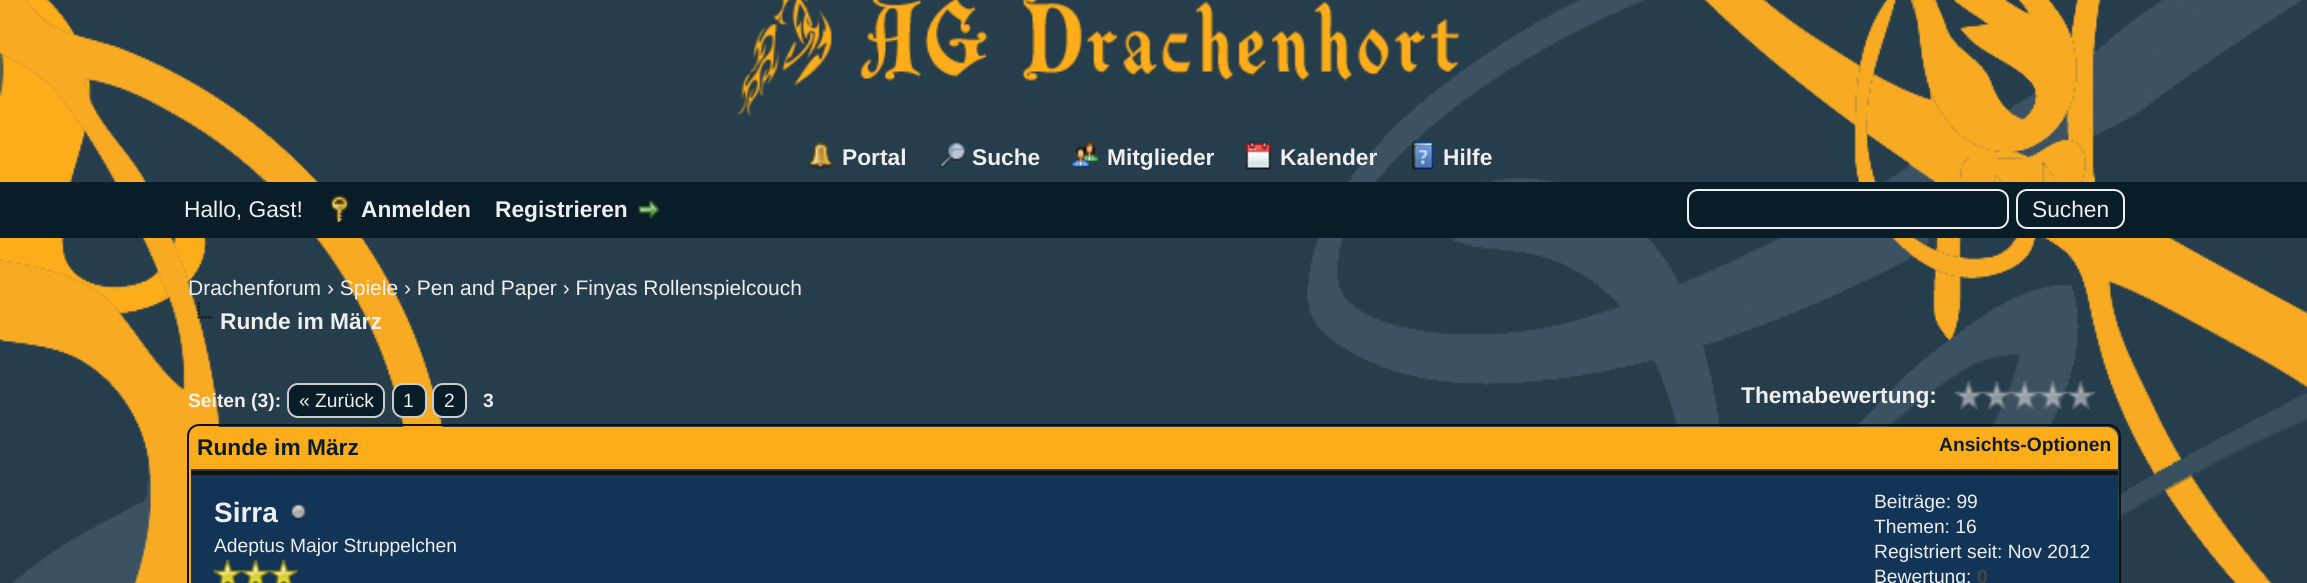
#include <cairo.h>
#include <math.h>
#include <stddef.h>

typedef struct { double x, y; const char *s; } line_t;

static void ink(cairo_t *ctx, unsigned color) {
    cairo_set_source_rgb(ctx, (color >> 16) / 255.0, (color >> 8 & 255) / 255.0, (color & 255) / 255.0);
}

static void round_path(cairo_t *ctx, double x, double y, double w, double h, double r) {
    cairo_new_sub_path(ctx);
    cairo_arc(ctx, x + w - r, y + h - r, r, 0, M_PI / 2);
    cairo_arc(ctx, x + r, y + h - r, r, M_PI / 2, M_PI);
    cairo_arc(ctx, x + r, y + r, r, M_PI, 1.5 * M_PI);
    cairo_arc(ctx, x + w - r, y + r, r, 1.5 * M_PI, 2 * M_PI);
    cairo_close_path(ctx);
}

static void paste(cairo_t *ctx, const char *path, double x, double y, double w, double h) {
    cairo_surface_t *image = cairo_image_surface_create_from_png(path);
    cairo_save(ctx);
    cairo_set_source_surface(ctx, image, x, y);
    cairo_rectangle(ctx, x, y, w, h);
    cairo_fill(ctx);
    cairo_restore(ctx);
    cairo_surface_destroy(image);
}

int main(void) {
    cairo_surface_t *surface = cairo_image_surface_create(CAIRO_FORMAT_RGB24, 2307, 583);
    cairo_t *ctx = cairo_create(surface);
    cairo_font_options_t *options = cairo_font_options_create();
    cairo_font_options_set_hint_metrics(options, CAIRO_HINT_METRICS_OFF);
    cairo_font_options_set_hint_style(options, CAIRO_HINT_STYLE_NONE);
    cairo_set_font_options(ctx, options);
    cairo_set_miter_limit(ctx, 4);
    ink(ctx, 0x263D4B);
    cairo_paint(ctx);
    paste(ctx, "media/1.png", 0, 0, 207, 315);
    paste(ctx, "media/2.png", 0, 0, 444, 583);
    paste(ctx, "media/3.png", 1307, 0, 1000, 583);
    paste(ctx, "media/4.png", 1448, 0, 859, 521);
    paste(ctx, "media/5.png", 736, 0, 724, 116);
    paste(ctx, "media/6.png", 808, 141, 26, 28);
    cairo_select_font_face(ctx, "Liberation Sans", CAIRO_FONT_SLANT_NORMAL, CAIRO_FONT_WEIGHT_BOLD);
    cairo_set_font_size(ctx, 22.75);
    ink(ctx, 0xEFEFEF);
    cairo_move_to(ctx, 842, 165);
    cairo_show_text(ctx, "Portal");
    paste(ctx, "media/7.png", 939, 141, 27, 27);
    cairo_move_to(ctx, 972, 165);
    cairo_show_text(ctx, "Suche");
    paste(ctx, "media/8.png", 1071, 141, 28, 27);
    cairo_move_to(ctx, 1107, 165);
    cairo_show_text(ctx, "Mitglieder");
    paste(ctx, "media/9.png", 1245, 141, 26, 29);
    cairo_move_to(ctx, 1280, 165);
    cairo_show_text(ctx, "Kalender");
    paste(ctx, "media/10.png", 1412, 141, 22, 29);
    cairo_move_to(ctx, 1443, 165);
    cairo_show_text(ctx, "Hilfe");
    ink(ctx, 0x091D28);
    cairo_rectangle(ctx, 0, 182, 2307, 56);
    cairo_fill(ctx);
    cairo_select_font_face(ctx, "Liberation Sans", CAIRO_FONT_SLANT_NORMAL, CAIRO_FONT_WEIGHT_NORMAL);
    ink(ctx, 0xEFEFEF);
    cairo_move_to(ctx, 184, 217);
    cairo_show_text(ctx, "Hallo, Gast!");
    paste(ctx, "media/11.png", 330, 195, 19, 27);
    cairo_select_font_face(ctx, "Liberation Sans", CAIRO_FONT_SLANT_NORMAL, CAIRO_FONT_WEIGHT_BOLD);
    cairo_move_to(ctx, 361, 217);
    cairo_show_text(ctx, "Anmelden");
    cairo_move_to(ctx, 495, 217);
    cairo_show_text(ctx, "Registrieren");
    paste(ctx, "media/12.png", 638, 200, 22, 19);
    round_path(ctx, 1688, 190, 320, 38, 10);
    cairo_stroke(ctx);
    round_path(ctx, 2017, 190, 107, 38, 10);
    cairo_stroke(ctx);
    cairo_select_font_face(ctx, "Liberation Sans", CAIRO_FONT_SLANT_NORMAL, CAIRO_FONT_WEIGHT_NORMAL);
    cairo_move_to(ctx, 2032, 217);
    cairo_show_text(ctx, "Suchen");
    cairo_set_font_size(ctx, 21);
    cairo_move_to(ctx, 188, 295);
    cairo_show_text(ctx, "Drachenforum › Spiele › Pen and Paper › Finyas Rollenspielcouch");
    paste(ctx, "media/13.png", 197, 302, 17, 17);
    cairo_select_font_face(ctx, "Liberation Sans", CAIRO_FONT_SLANT_NORMAL, CAIRO_FONT_WEIGHT_BOLD);
    cairo_set_font_size(ctx, 22.75);
    cairo_move_to(ctx, 220, 329);
    cairo_show_text(ctx, "Runde im März");
    cairo_set_font_size(ctx, 19.25);
    cairo_move_to(ctx, 188, 407);
    cairo_show_text(ctx, "Seiten (3):");
    ink(ctx, 0x091D28);
    round_path(ctx, 288, 384, 96, 33, 10);
    cairo_fill_preserve(ctx);
    ink(ctx, 0xCCCCCC);
    cairo_stroke(ctx);
    cairo_select_font_face(ctx, "Liberation Sans", CAIRO_FONT_SLANT_NORMAL, CAIRO_FONT_WEIGHT_NORMAL);
    ink(ctx, 0xEFEFEF);
    cairo_move_to(ctx, 299, 407);
    cairo_show_text(ctx, "« Zurück");
    ink(ctx, 0x091D28);
    round_path(ctx, 393, 384, 33, 33, 10);
    cairo_fill_preserve(ctx);
    ink(ctx, 0xCCCCCC);
    cairo_stroke(ctx);
    ink(ctx, 0xEFEFEF);
    cairo_move_to(ctx, 403, 407);
    cairo_show_text(ctx, "1");
    ink(ctx, 0x091D28);
    round_path(ctx, 433, 384, 33, 33, 10);
    cairo_fill_preserve(ctx);
    ink(ctx, 0xCCCCCC);
    cairo_stroke(ctx);
    ink(ctx, 0xEFEFEF);
    cairo_move_to(ctx, 444, 407);
    cairo_show_text(ctx, "2");
    cairo_select_font_face(ctx, "Liberation Sans", CAIRO_FONT_SLANT_NORMAL, CAIRO_FONT_WEIGHT_BOLD);
    cairo_move_to(ctx, 483, 407);
    cairo_show_text(ctx, "3");
    cairo_set_font_size(ctx, 22.75);
    cairo_move_to(ctx, 1741, 403);
    cairo_show_text(ctx, "Themabewertung:");
    paste(ctx, "media/14.png", 1954, 381, 141, 29);
    round_path(ctx, 188, 425, 1932, 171, 11);
    ink(ctx, 0x111111);
    cairo_stroke(ctx);
    ink(ctx, 0xFDAD1A);
    cairo_new_path(ctx);
    cairo_move_to(ctx, 202, 427);
    cairo_line_to(ctx, 2107, 427);
    cairo_curve_to(ctx, 2113, 427, 2118, 432, 2118, 438);
    cairo_line_to(ctx, 2118, 471);
    cairo_line_to(ctx, 191, 471);
    cairo_line_to(ctx, 191, 438);
    cairo_curve_to(ctx, 191, 432, 196, 427, 202, 427);
    cairo_close_path(ctx);
    cairo_fill(ctx);
    ink(ctx, 0x263C30);
    cairo_rectangle(ctx, 191, 469, 1927, 2);
    cairo_fill(ctx);
    ink(ctx, 0x091D28);
    cairo_move_to(ctx, 197, 455);
    cairo_show_text(ctx, "Runde im März");
    cairo_set_font_size(ctx, 19.25);
    cairo_move_to(ctx, 1939, 451);
    cairo_show_text(ctx, "Ansichts-Optionen");
    ink(ctx, 0x123456);
    cairo_rectangle(ctx, 191, 475, 1927, 108);
    cairo_fill(ctx);
    ink(ctx, 0x111111);
    cairo_rectangle(ctx, 191, 471, 1927, 4);
    cairo_fill(ctx);
    cairo_set_font_size(ctx, 28);
    ink(ctx, 0xEFEFEF);
    cairo_move_to(ctx, 214, 522);
    cairo_show_text(ctx, "Sirra");
    paste(ctx, "media/15.png", 290, 503, 17, 17);
    cairo_select_font_face(ctx, "Liberation Sans", CAIRO_FONT_SLANT_NORMAL, CAIRO_FONT_WEIGHT_NORMAL);
    cairo_set_font_size(ctx, 19.25);
    cairo_move_to(ctx, 214, 552);
    cairo_show_text(ctx, "Adeptus Major Struppelchen");
    paste(ctx, "media/16.png", 213, 559, 29, 24);
    paste(ctx, "media/17.png", 241, 559, 29, 24);
    paste(ctx, "media/18.png", 269, 559, 29, 24);
    {
        static const line_t items[] = {
            {1874, 508, "Beiträge: 99"},
            {1874, 533, "Themen: 16"},
            {1874, 558, "Registriert seit: Nov 2012"},
            {1874, 583, "Bewertung:"},
        };
        for (size_t i = 0; i < sizeof items / sizeof *items; i++) {
            cairo_move_to(ctx, items[i].x, items[i].y);
            cairo_show_text(ctx, items[i].s);
        }
    }
    cairo_select_font_face(ctx, "Liberation Sans", CAIRO_FONT_SLANT_NORMAL, CAIRO_FONT_WEIGHT_BOLD);
    ink(ctx, 0x444444);
    cairo_move_to(ctx, 1977, 583);
    cairo_show_text(ctx, "0");
    cairo_surface_write_to_png(surface, "image.png");
    cairo_font_options_destroy(options);
    cairo_destroy(ctx);
    cairo_surface_destroy(surface);
    return 0;
}
